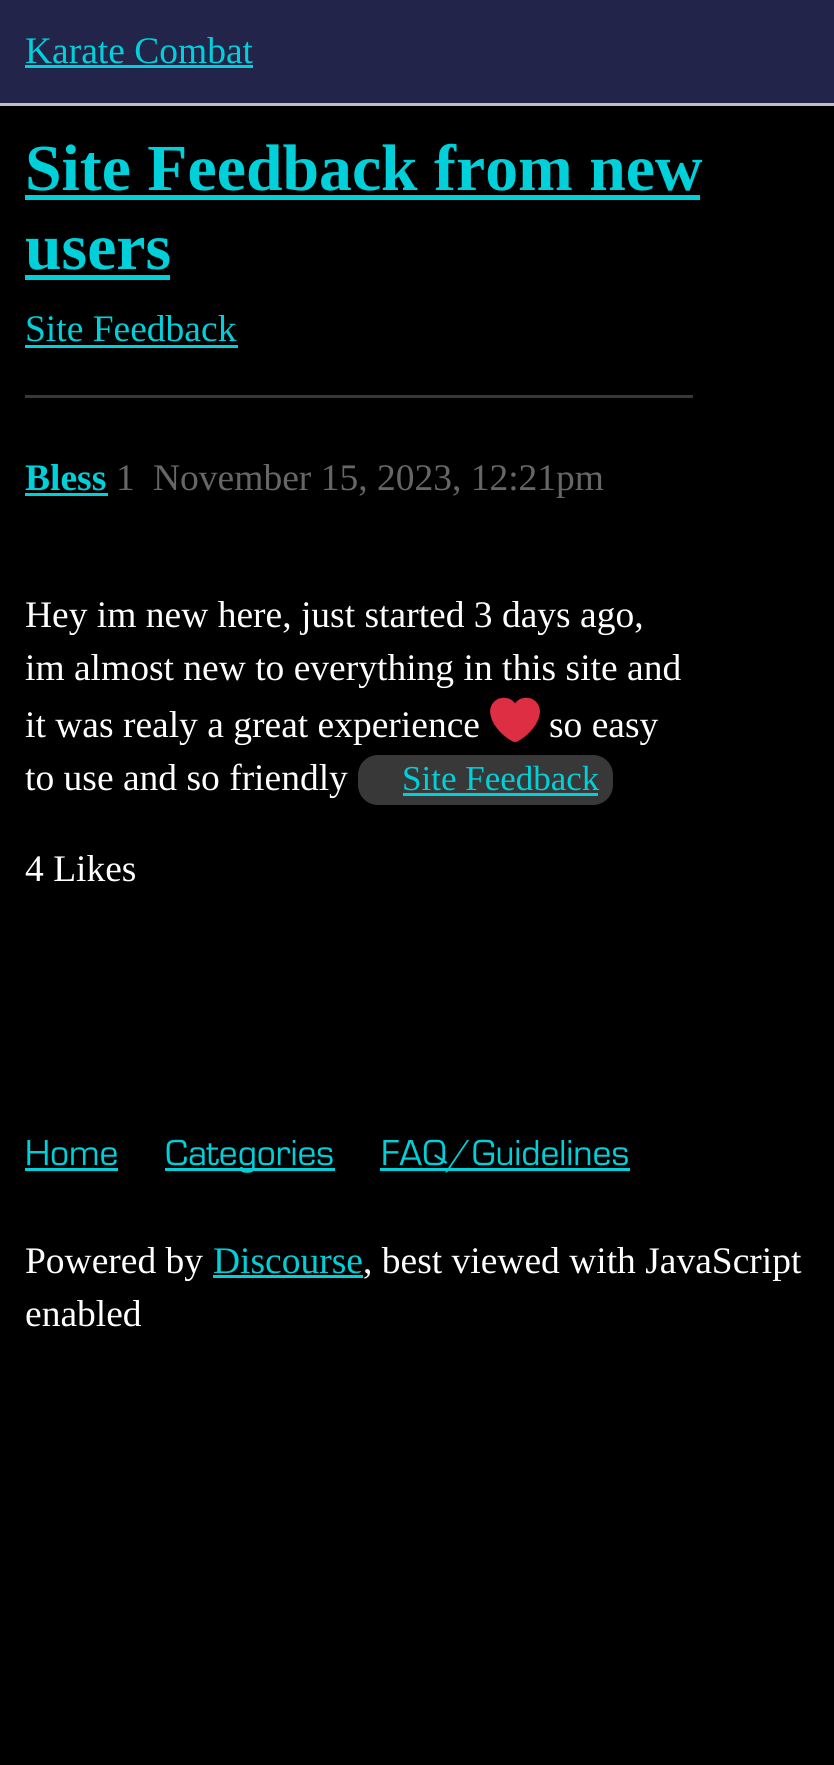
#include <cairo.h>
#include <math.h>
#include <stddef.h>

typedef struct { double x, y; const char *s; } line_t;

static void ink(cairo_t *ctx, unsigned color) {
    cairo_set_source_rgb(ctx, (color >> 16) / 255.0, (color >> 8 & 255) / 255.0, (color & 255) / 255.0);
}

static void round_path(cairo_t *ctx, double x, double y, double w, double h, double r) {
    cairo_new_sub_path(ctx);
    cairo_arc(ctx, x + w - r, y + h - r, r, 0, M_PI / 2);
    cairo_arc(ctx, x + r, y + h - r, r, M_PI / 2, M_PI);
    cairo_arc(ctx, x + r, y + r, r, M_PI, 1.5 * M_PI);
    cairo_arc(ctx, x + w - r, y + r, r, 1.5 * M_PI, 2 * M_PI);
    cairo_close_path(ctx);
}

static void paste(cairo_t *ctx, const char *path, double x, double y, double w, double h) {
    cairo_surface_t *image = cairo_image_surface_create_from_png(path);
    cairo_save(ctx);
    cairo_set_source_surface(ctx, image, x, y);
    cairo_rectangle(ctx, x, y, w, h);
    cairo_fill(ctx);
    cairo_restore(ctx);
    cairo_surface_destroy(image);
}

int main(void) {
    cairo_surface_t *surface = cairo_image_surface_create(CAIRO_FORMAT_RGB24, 834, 1765);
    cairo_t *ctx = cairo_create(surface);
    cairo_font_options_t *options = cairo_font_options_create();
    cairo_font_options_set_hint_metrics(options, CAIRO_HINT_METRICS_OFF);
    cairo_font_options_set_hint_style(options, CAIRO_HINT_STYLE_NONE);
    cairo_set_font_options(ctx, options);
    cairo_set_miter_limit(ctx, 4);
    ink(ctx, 0x000000);
    cairo_paint(ctx);
    ink(ctx, 0x222449);
    cairo_rectangle(ctx, 0, 0, 834, 103);
    cairo_fill(ctx);
    ink(ctx, 0xBEBFC3);
    cairo_rectangle(ctx, 0, 103, 834, 3);
    cairo_fill(ctx);
    cairo_select_font_face(ctx, "Liberation Serif", CAIRO_FONT_SLANT_NORMAL, CAIRO_FONT_WEIGHT_NORMAL);
    cairo_set_font_size(ctx, 37.5);
    ink(ctx, 0x00D0DA);
    cairo_move_to(ctx, 25, 63);
    cairo_show_text(ctx, "Karate Combat");
    cairo_rectangle(ctx, 25, 65, 228, 3);
    cairo_fill(ctx);
    cairo_select_font_face(ctx, "Liberation Serif", CAIRO_FONT_SLANT_NORMAL, CAIRO_FONT_WEIGHT_BOLD);
    cairo_set_font_size(ctx, 65.75);
    cairo_move_to(ctx, 25, 190);
    cairo_show_text(ctx, "Site Feedback from new");
    cairo_rectangle(ctx, 25, 195, 675, 5);
    cairo_fill(ctx);
    cairo_move_to(ctx, 25, 269);
    cairo_show_text(ctx, "users");
    cairo_rectangle(ctx, 25, 275, 145, 5);
    cairo_fill(ctx);
    cairo_select_font_face(ctx, "Liberation Serif", CAIRO_FONT_SLANT_NORMAL, CAIRO_FONT_WEIGHT_NORMAL);
    cairo_set_font_size(ctx, 37.5);
    cairo_move_to(ctx, 25, 341);
    cairo_show_text(ctx, "Site Feedback");
    cairo_rectangle(ctx, 25, 345, 213, 3);
    cairo_fill(ctx);
    ink(ctx, 0x383838);
    cairo_rectangle(ctx, 25, 395, 668, 3);
    cairo_fill(ctx);
    cairo_select_font_face(ctx, "Liberation Serif", CAIRO_FONT_SLANT_NORMAL, CAIRO_FONT_WEIGHT_BOLD);
    ink(ctx, 0x00D0DA);
    cairo_move_to(ctx, 25, 490);
    cairo_show_text(ctx, "Bless");
    cairo_rectangle(ctx, 25, 493, 83, 3);
    cairo_fill(ctx);
    cairo_select_font_face(ctx, "Liberation Serif", CAIRO_FONT_SLANT_NORMAL, CAIRO_FONT_WEIGHT_NORMAL);
    ink(ctx, 0x666666);
    cairo_move_to(ctx, 116, 490);
    cairo_show_text(ctx, "1");
    cairo_move_to(ctx, 153, 490);
    cairo_show_text(ctx, "November 15, 2023, 12:21pm");
    ink(ctx, 0xFFFFFF);
    {
        static const line_t items[] = {
            {25, 627, "Hey im new here, just started 3 days ago,"},
            {25, 680, "im almost new to everything in this site and"},
            {25, 737, "it was realy a great experience"},
        };
        for (size_t i = 0; i < sizeof items / sizeof *items; i++) {
            cairo_move_to(ctx, items[i].x, items[i].y);
            cairo_show_text(ctx, items[i].s);
        }
    }
    paste(ctx, "media/1.png", 490, 697, 50, 46);
    cairo_move_to(ctx, 549, 737);
    cairo_show_text(ctx, "so easy");
    cairo_move_to(ctx, 25, 790);
    cairo_show_text(ctx, "to use and so friendly");
    ink(ctx, 0x383838);
    round_path(ctx, 358, 755, 255, 50, 20);
    cairo_fill(ctx);
    cairo_set_font_size(ctx, 35);
    ink(ctx, 0x00D0DA);
    cairo_move_to(ctx, 402, 790);
    cairo_show_text(ctx, "Site Feedback");
    cairo_rectangle(ctx, 403, 793, 195, 3);
    cairo_fill(ctx);
    cairo_set_font_size(ctx, 37.5);
    ink(ctx, 0xFFFFFF);
    cairo_move_to(ctx, 25, 881);
    cairo_show_text(ctx, "4 Likes");
    cairo_select_font_face(ctx, "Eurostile", CAIRO_FONT_SLANT_NORMAL, CAIRO_FONT_WEIGHT_NORMAL);
    ink(ctx, 0x00D0DA);
    cairo_move_to(ctx, 25, 1165);
    cairo_show_text(ctx, "Home");
    cairo_rectangle(ctx, 25, 1168, 93, 3);
    cairo_fill(ctx);
    cairo_rectangle(ctx, 165, 1168, 170, 3);
    cairo_fill(ctx);
    cairo_move_to(ctx, 165, 1165);
    cairo_show_text(ctx, "Categories");
    cairo_rectangle(ctx, 380, 1168, 250, 3);
    cairo_fill(ctx);
    cairo_move_to(ctx, 381, 1165);
    cairo_show_text(ctx, "FAQ/Guidelines");
    cairo_select_font_face(ctx, "Liberation Serif", CAIRO_FONT_SLANT_NORMAL, CAIRO_FONT_WEIGHT_NORMAL);
    ink(ctx, 0xFFFFFF);
    cairo_move_to(ctx, 25, 1273);
    cairo_show_text(ctx, "Powered by");
    ink(ctx, 0x00D0DA);
    cairo_move_to(ctx, 213, 1273);
    cairo_show_text(ctx, "Discourse");
    cairo_rectangle(ctx, 213, 1275, 150, 3);
    cairo_fill(ctx);
    ink(ctx, 0xFFFFFF);
    cairo_move_to(ctx, 363, 1273);
    cairo_show_text(ctx, ", best viewed with JavaScript");
    cairo_move_to(ctx, 25, 1326);
    cairo_show_text(ctx, "enabled");
    cairo_surface_write_to_png(surface, "image.png");
    cairo_font_options_destroy(options);
    cairo_destroy(ctx);
    cairo_surface_destroy(surface);
    return 0;
}
